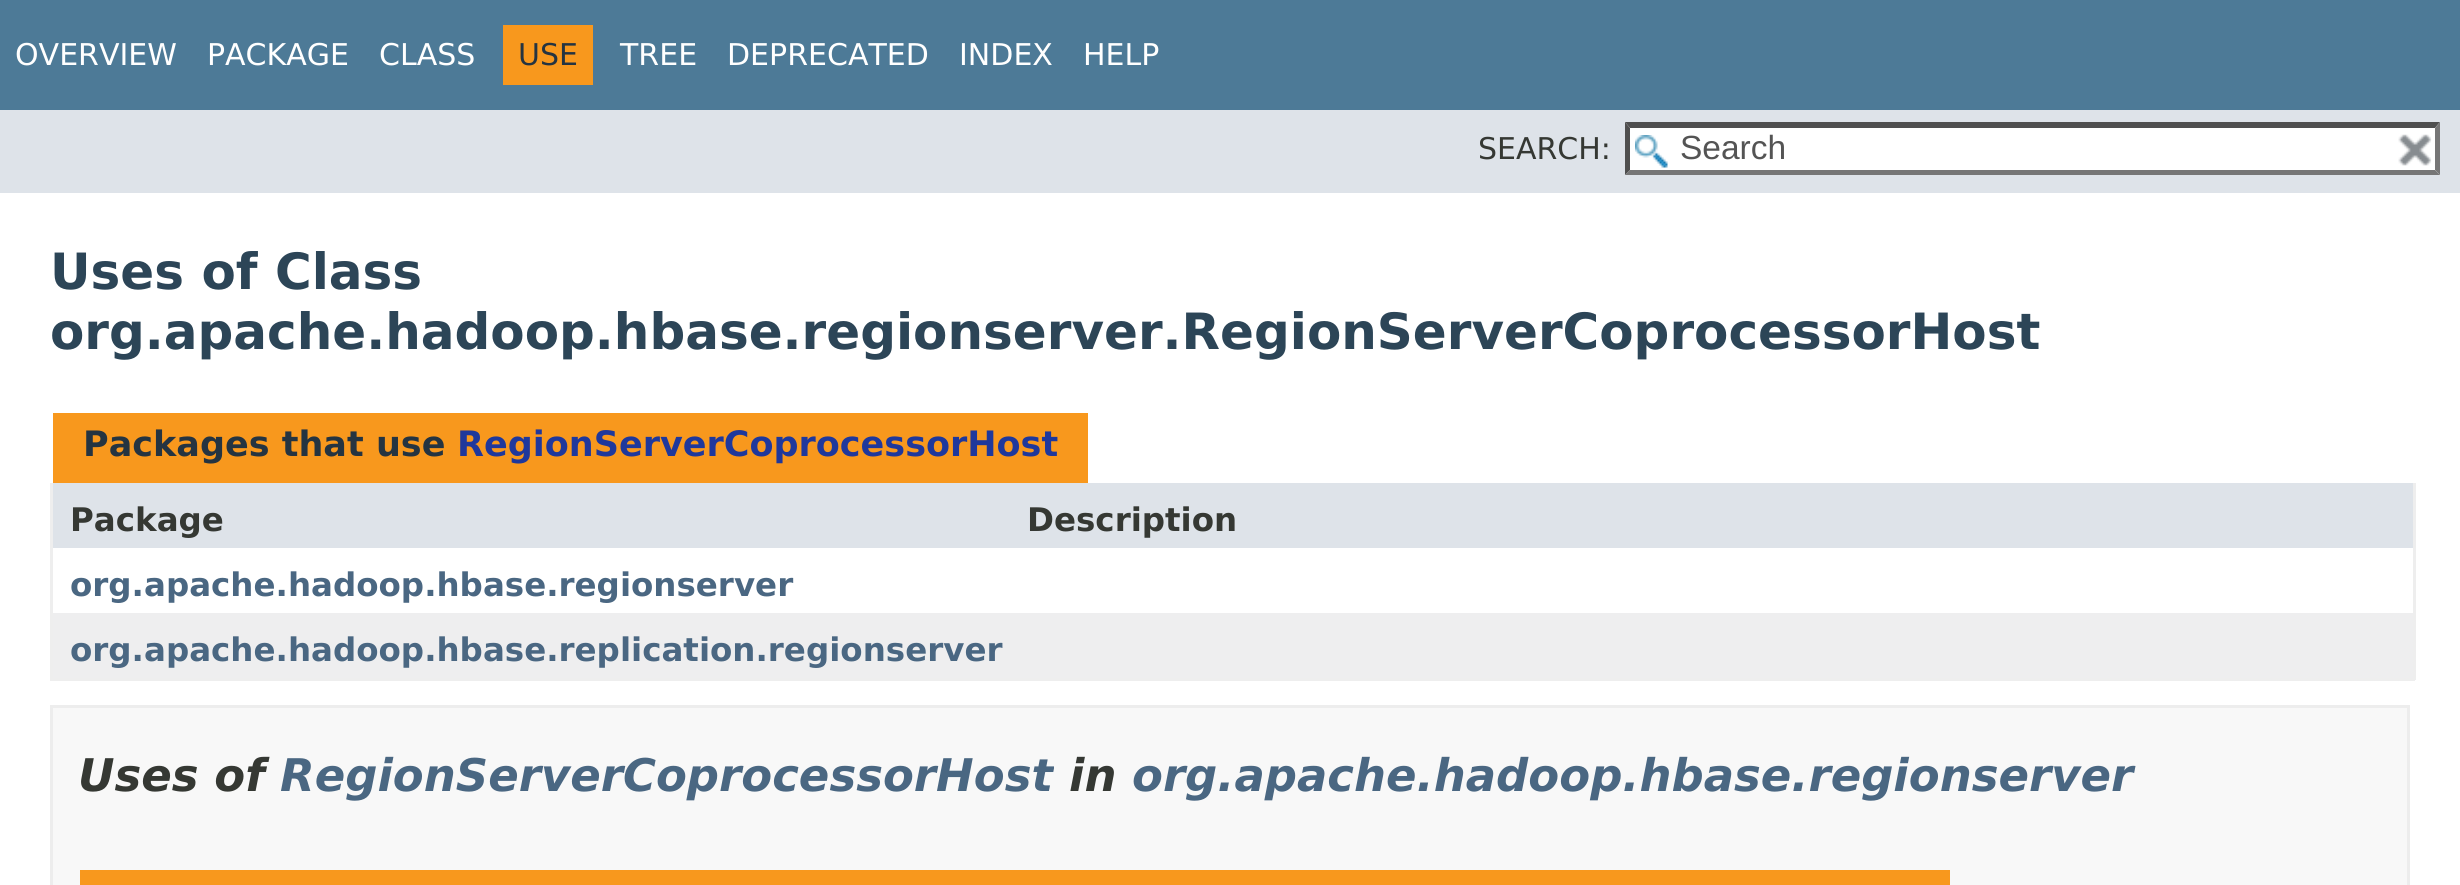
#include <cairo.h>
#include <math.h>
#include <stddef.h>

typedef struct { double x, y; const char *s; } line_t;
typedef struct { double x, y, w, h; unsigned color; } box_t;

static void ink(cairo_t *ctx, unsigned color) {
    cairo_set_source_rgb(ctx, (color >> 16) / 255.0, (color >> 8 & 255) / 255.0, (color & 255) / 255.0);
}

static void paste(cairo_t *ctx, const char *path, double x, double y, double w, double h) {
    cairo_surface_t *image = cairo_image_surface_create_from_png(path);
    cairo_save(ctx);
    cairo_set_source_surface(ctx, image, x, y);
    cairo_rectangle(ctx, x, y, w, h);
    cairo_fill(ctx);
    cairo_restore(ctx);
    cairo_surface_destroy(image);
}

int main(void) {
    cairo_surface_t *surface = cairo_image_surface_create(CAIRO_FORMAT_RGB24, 2460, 885);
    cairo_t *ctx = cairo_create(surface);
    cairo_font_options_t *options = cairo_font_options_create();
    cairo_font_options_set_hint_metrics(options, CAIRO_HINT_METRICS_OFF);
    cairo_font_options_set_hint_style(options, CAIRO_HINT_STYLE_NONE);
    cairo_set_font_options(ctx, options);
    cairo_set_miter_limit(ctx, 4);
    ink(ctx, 0xFFFFFF);
    cairo_paint(ctx);
    ink(ctx, 0x4D7A97);
    cairo_rectangle(ctx, 0, 0, 2460, 110);
    cairo_fill(ctx);
    cairo_select_font_face(ctx, "DejaVu Sans", CAIRO_FONT_SLANT_NORMAL, CAIRO_FONT_WEIGHT_NORMAL);
    cairo_set_font_size(ctx, 30);
    ink(ctx, 0xFFFFFF);
    {
        static const line_t items[] = {
            {15, 65, "OVERVIEW"},
            {207, 65, "PACKAGE"},
            {379, 65, "CLASS"},
        };
        for (size_t i = 0; i < sizeof items / sizeof *items; i++) {
            cairo_move_to(ctx, items[i].x, items[i].y);
            cairo_show_text(ctx, items[i].s);
        }
    }
    ink(ctx, 0xF8981D);
    cairo_rectangle(ctx, 503, 25, 90, 60);
    cairo_fill(ctx);
    ink(ctx, 0x253441);
    cairo_move_to(ctx, 518, 65);
    cairo_show_text(ctx, "USE");
    ink(ctx, 0xFFFFFF);
    {
        static const line_t items[] = {
            {620, 65, "TREE"},
            {727, 65, "DEPRECATED"},
            {959, 65, "INDEX"},
            {1083, 65, "HELP"},
        };
        for (size_t i = 0; i < sizeof items / sizeof *items; i++) {
            cairo_move_to(ctx, items[i].x, items[i].y);
            cairo_show_text(ctx, items[i].s);
        }
    }
    ink(ctx, 0xDEE3E9);
    cairo_rectangle(ctx, 0, 110, 2460, 83);
    cairo_fill(ctx);
    ink(ctx, 0x353833);
    cairo_move_to(ctx, 1478, 159);
    cairo_show_text(ctx, "SEARCH:");
    ink(ctx, 0xFFFFFF);
    cairo_rectangle(ctx, 1625, 123, 815, 52);
    cairo_fill(ctx);
    paste(ctx, "media/1.png", 1635, 135, 33, 33);
    ink(ctx, 0x4F4F4F);
    cairo_new_path(ctx);
    cairo_move_to(ctx, 1625, 122);
    cairo_line_to(ctx, 2440, 122);
    cairo_line_to(ctx, 2435, 128);
    cairo_line_to(ctx, 1630, 128);
    cairo_close_path(ctx);
    cairo_fill(ctx);
    ink(ctx, 0x767676);
    cairo_new_path(ctx);
    cairo_move_to(ctx, 2440, 122);
    cairo_line_to(ctx, 2440, 175);
    cairo_line_to(ctx, 2435, 170);
    cairo_line_to(ctx, 2435, 128);
    cairo_close_path(ctx);
    cairo_fill(ctx);
    cairo_new_path(ctx);
    cairo_move_to(ctx, 2440, 175);
    cairo_line_to(ctx, 1625, 175);
    cairo_line_to(ctx, 1630, 170);
    cairo_line_to(ctx, 2435, 170);
    cairo_close_path(ctx);
    cairo_fill(ctx);
    ink(ctx, 0x4F4F4F);
    cairo_new_path(ctx);
    cairo_move_to(ctx, 1625, 175);
    cairo_line_to(ctx, 1625, 122);
    cairo_line_to(ctx, 1630, 128);
    cairo_line_to(ctx, 1630, 170);
    cairo_close_path(ctx);
    cairo_fill(ctx);
    cairo_select_font_face(ctx, "Liberation Sans", CAIRO_FONT_SLANT_NORMAL, CAIRO_FONT_WEIGHT_NORMAL);
    cairo_set_font_size(ctx, 33.5);
    ink(ctx, 0x545454);
    cairo_move_to(ctx, 1680, 159);
    cairo_show_text(ctx, "Search");
    paste(ctx, "media/2.png", 2398, 134, 34, 32);
    cairo_select_font_face(ctx, "DejaVu Sans", CAIRO_FONT_SLANT_NORMAL, CAIRO_FONT_WEIGHT_BOLD);
    cairo_set_font_size(ctx, 50);
    ink(ctx, 0x2C4557);
    cairo_move_to(ctx, 50, 289);
    cairo_show_text(ctx, "Uses of Class");
    cairo_move_to(ctx, 50, 349);
    cairo_show_text(ctx, "org.apache.hadoop.hbase.regionserver.RegionServerCoprocessorHost");
    ink(ctx, 0xF8981D);
    cairo_rectangle(ctx, 53, 413, 1035, 70);
    cairo_fill(ctx);
    cairo_set_font_size(ctx, 35);
    ink(ctx, 0x253441);
    cairo_move_to(ctx, 83, 456);
    cairo_show_text(ctx, "Packages that use");
    ink(ctx, 0x1F389C);
    cairo_move_to(ctx, 457, 456);
    cairo_show_text(ctx, "RegionServerCoprocessorHost");
    {
        static const box_t items[] = {
            {2413, 483, 3, 197, 0xEEEEEE},
            {50, 678, 2365, 3, 0xEEEEEE},
            {50, 483, 3, 197, 0xEEEEEE},
            {53, 483, 2360, 65, 0xDEE3E9},
        };
        for (size_t i = 0; i < sizeof items / sizeof *items; i++) {
            ink(ctx, items[i].color);
            cairo_rectangle(ctx, items[i].x, items[i].y, items[i].w, items[i].h);
            cairo_fill(ctx);
        }
    }
    cairo_set_font_size(ctx, 32.5);
    ink(ctx, 0x353833);
    cairo_move_to(ctx, 70, 531);
    cairo_show_text(ctx, "Package");
    cairo_move_to(ctx, 1027, 531);
    cairo_show_text(ctx, "Description");
    ink(ctx, 0x4A6782);
    cairo_move_to(ctx, 70, 596);
    cairo_show_text(ctx, "org.apache.hadoop.hbase.regionserver");
    ink(ctx, 0xEEEEEF);
    cairo_rectangle(ctx, 53, 613, 2360, 65);
    cairo_fill(ctx);
    ink(ctx, 0x4A6782);
    cairo_move_to(ctx, 70, 661);
    cairo_show_text(ctx, "org.apache.hadoop.hbase.replication.regionserver");
    ink(ctx, 0xF8F8F8);
    cairo_rectangle(ctx, 51.5, 706.5, 2357, 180);
    cairo_fill_preserve(ctx);
    ink(ctx, 0xEDEDED);
    cairo_set_line_width(ctx, 3);
    cairo_stroke(ctx);
    cairo_select_font_face(ctx, "DejaVu Sans", CAIRO_FONT_SLANT_ITALIC, CAIRO_FONT_WEIGHT_BOLD);
    cairo_set_font_size(ctx, 45);
    ink(ctx, 0x353833);
    cairo_move_to(ctx, 78, 791);
    cairo_show_text(ctx, "Uses of");
    ink(ctx, 0x4A6782);
    cairo_move_to(ctx, 280, 791);
    cairo_show_text(ctx, "RegionServerCoprocessorHost");
    ink(ctx, 0x353833);
    cairo_move_to(ctx, 1069, 791);
    cairo_show_text(ctx, "in");
    ink(ctx, 0x4A6782);
    cairo_move_to(ctx, 1132, 791);
    cairo_show_text(ctx, "org.apache.hadoop.hbase.regionserver");
    ink(ctx, 0xF8981D);
    cairo_rectangle(ctx, 80, 870, 1870, 15);
    cairo_fill(ctx);
    cairo_surface_write_to_png(surface, "image.png");
    cairo_font_options_destroy(options);
    cairo_destroy(ctx);
    cairo_surface_destroy(surface);
    return 0;
}
